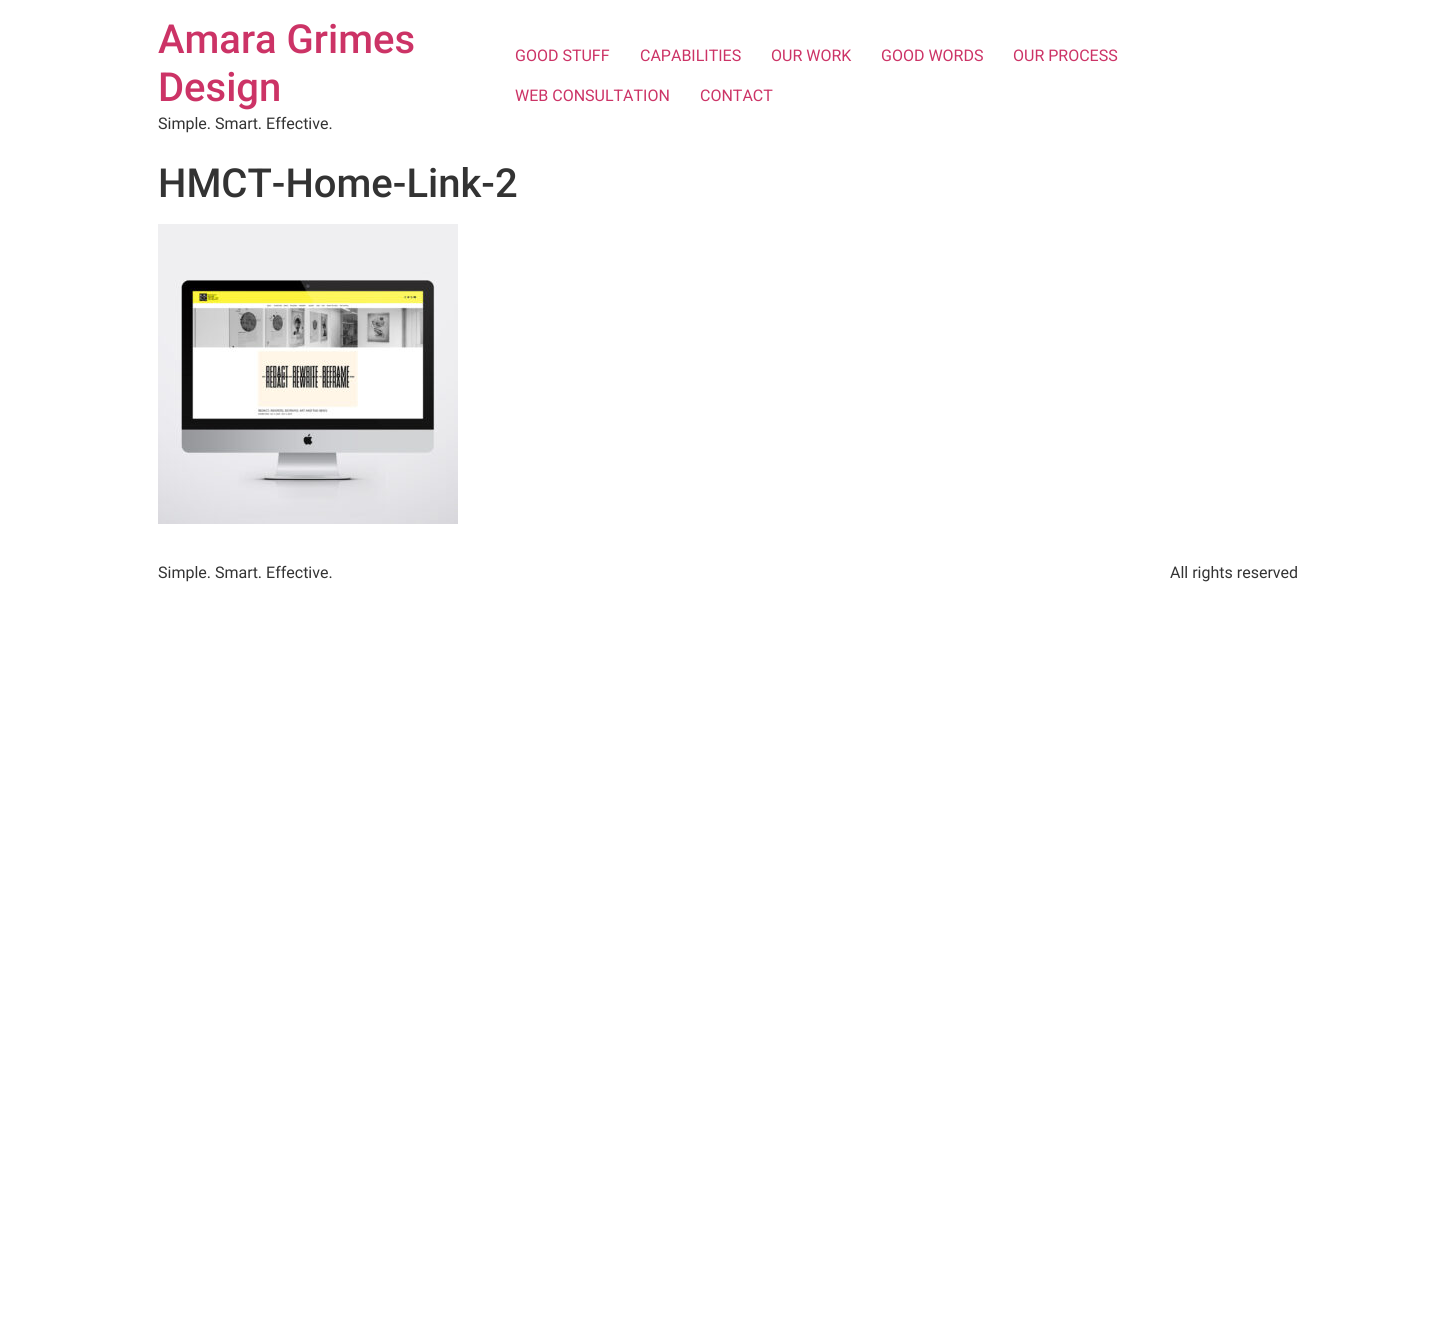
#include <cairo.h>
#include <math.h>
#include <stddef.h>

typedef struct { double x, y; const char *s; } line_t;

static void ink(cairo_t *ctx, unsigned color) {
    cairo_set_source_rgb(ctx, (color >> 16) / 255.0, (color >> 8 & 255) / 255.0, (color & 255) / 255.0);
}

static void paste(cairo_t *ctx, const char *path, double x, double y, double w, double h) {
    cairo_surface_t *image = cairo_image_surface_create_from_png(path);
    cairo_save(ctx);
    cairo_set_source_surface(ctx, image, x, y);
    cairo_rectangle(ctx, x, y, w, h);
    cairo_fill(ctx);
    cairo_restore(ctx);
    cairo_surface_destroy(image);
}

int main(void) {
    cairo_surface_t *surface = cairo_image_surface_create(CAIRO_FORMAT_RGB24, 1456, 1326);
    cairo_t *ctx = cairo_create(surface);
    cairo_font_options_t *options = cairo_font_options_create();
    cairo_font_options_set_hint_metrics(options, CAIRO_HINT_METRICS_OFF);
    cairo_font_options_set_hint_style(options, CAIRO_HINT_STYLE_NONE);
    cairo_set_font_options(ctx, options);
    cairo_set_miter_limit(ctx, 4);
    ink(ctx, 0xFFFFFF);
    cairo_paint(ctx);
    cairo_select_font_face(ctx, "Roboto Medium", CAIRO_FONT_SLANT_NORMAL, CAIRO_FONT_WEIGHT_NORMAL);
    cairo_set_font_size(ctx, 40);
    ink(ctx, 0xCC3366);
    cairo_move_to(ctx, 158, 53);
    cairo_show_text(ctx, "Amara Grimes");
    cairo_move_to(ctx, 158, 101);
    cairo_show_text(ctx, "Design");
    cairo_select_font_face(ctx, "Roboto", CAIRO_FONT_SLANT_NORMAL, CAIRO_FONT_WEIGHT_NORMAL);
    cairo_set_font_size(ctx, 16);
    ink(ctx, 0x333333);
    cairo_move_to(ctx, 158, 129);
    cairo_show_text(ctx, "Simple. Smart. Effective.");
    ink(ctx, 0xCC3366);
    {
        static const line_t items[] = {
            {515, 61, "GOOD STUFF"},
            {640, 61, "CAPABILITIES"},
            {771, 61, "OUR WORK"},
            {881, 61, "GOOD WORDS"},
            {1013, 61, "OUR PROCESS"},
            {515, 101, "WEB CONSULTATION"},
            {700, 101, "CONTACT"},
        };
        for (size_t i = 0; i < sizeof items / sizeof *items; i++) {
            cairo_move_to(ctx, items[i].x, items[i].y);
            cairo_show_text(ctx, items[i].s);
        }
    }
    cairo_select_font_face(ctx, "Roboto Medium", CAIRO_FONT_SLANT_NORMAL, CAIRO_FONT_WEIGHT_NORMAL);
    cairo_set_font_size(ctx, 40);
    ink(ctx, 0x333333);
    cairo_move_to(ctx, 158, 197);
    cairo_show_text(ctx, "HMCT-Home-Link-2");
    paste(ctx, "media/1.png", 158, 224, 300, 300);
    cairo_select_font_face(ctx, "Roboto", CAIRO_FONT_SLANT_NORMAL, CAIRO_FONT_WEIGHT_NORMAL);
    cairo_set_font_size(ctx, 16);
    cairo_move_to(ctx, 158, 578);
    cairo_show_text(ctx, "Simple. Smart. Effective.");
    cairo_move_to(ctx, 1170, 578);
    cairo_show_text(ctx, "All rights reserved");
    cairo_surface_write_to_png(surface, "image.png");
    cairo_font_options_destroy(options);
    cairo_destroy(ctx);
    cairo_surface_destroy(surface);
    return 0;
}
